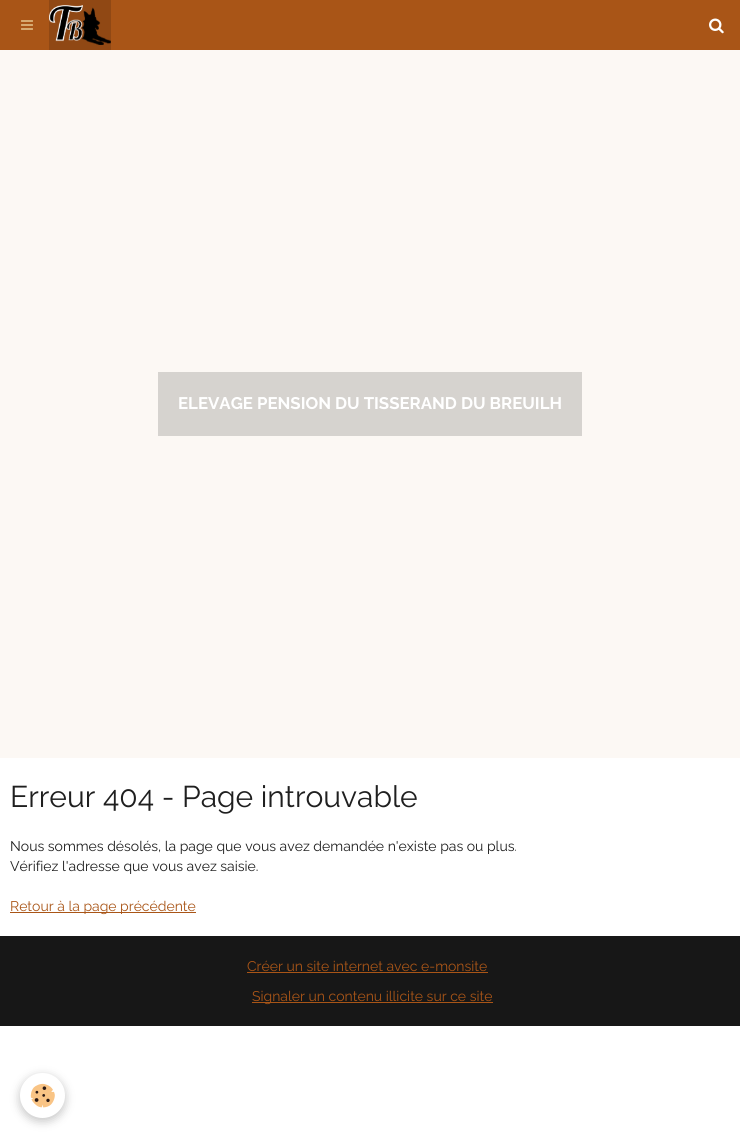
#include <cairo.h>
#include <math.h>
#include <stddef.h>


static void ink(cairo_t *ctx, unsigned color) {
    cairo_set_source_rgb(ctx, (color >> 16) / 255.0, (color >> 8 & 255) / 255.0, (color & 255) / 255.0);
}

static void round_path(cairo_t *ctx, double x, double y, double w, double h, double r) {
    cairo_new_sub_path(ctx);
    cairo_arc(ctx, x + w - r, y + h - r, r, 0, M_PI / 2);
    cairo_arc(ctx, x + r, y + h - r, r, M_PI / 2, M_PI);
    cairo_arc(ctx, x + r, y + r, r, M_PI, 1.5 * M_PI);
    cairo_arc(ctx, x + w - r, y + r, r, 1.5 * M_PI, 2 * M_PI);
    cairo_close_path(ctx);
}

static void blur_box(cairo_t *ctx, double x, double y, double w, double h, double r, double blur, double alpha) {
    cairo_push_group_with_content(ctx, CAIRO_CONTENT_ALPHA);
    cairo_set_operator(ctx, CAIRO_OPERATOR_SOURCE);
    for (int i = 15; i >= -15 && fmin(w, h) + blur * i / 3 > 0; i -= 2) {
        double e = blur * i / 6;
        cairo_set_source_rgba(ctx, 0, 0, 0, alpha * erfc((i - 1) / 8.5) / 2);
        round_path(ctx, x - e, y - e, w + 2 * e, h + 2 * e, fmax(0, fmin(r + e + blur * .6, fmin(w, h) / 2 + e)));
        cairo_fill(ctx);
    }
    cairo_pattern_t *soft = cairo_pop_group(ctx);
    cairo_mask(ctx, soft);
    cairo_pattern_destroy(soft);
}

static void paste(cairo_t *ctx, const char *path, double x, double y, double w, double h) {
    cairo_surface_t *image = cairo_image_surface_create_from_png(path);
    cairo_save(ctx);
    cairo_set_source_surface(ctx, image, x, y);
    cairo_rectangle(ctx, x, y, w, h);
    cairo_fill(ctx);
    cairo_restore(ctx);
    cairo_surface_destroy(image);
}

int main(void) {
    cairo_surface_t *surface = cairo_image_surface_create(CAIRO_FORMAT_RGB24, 740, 1137);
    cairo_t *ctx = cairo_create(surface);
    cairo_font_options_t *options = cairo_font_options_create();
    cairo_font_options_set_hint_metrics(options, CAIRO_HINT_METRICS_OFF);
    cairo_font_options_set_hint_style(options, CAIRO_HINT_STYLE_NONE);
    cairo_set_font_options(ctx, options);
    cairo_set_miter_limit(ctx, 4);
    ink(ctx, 0xFFFFFF);
    cairo_paint(ctx);
    ink(ctx, 0xA95517);
    cairo_rectangle(ctx, 0, 0, 740, 50);
    cairo_fill(ctx);
    paste(ctx, "media/1.png", 21, 20, 12, 10);
    ink(ctx, 0x904814);
    cairo_rectangle(ctx, 49, 0, 62, 50);
    cairo_fill(ctx);
    paste(ctx, "media/2.png", 49, 5, 62, 40);
    paste(ctx, "media/3.png", 709, 18, 15, 16);
    ink(ctx, 0xFCF8F4);
    cairo_rectangle(ctx, 0, 50, 740, 708);
    cairo_fill(ctx);
    ink(ctx, 0xD6D3CF);
    cairo_rectangle(ctx, 158, 372, 424, 64);
    cairo_fill(ctx);
    cairo_select_font_face(ctx, "Raleway", CAIRO_FONT_SLANT_NORMAL, CAIRO_FONT_WEIGHT_BOLD);
    cairo_set_font_size(ctx, 16.8);
    ink(ctx, 0xFFFFFF);
    cairo_move_to(ctx, 178, 409);
    cairo_show_text(ctx, "ELEVAGE PENSION DU TISSERAND DU BREUILH");
    cairo_select_font_face(ctx, "Raleway", CAIRO_FONT_SLANT_NORMAL, CAIRO_FONT_WEIGHT_NORMAL);
    cairo_set_font_size(ctx, 30);
    ink(ctx, 0x1F1F1F);
    cairo_move_to(ctx, 10, 807);
    cairo_show_text(ctx, "Erreur 404 - Page introuvable");
    cairo_set_font_size(ctx, 14);
    cairo_move_to(ctx, 10, 851);
    cairo_show_text(ctx, "Nous sommes désolés, la page que vous avez demandée n'existe pas ou plus.");
    cairo_move_to(ctx, 10, 871);
    cairo_show_text(ctx, "Vérifiez l'adresse que vous avez saisie.");
    ink(ctx, 0xA95517);
    cairo_rectangle(ctx, 10, 912, 186, 1);
    cairo_fill(ctx);
    cairo_move_to(ctx, 10, 911);
    cairo_show_text(ctx, "Retour à la page précédente");
    ink(ctx, 0x171717);
    cairo_rectangle(ctx, 0, 936, 740, 90);
    cairo_fill(ctx);
    ink(ctx, 0xA95517);
    cairo_move_to(ctx, 247, 971);
    cairo_show_text(ctx, "Créer un site internet avec e-monsite");
    cairo_rectangle(ctx, 247, 972, 241, 1);
    cairo_fill(ctx);
    cairo_rectangle(ctx, 252, 1002, 241, 1);
    cairo_fill(ctx);
    cairo_move_to(ctx, 252, 1001);
    cairo_show_text(ctx, "Signaler un contenu illicite sur ce site");
    ink(ctx, 0x000000);
    blur_box(ctx, 20, 1076, 45, 45, 22.5, 5, 0.24);
    ink(ctx, 0xFFFFFF);
    cairo_arc(ctx, 42.5, 1095.5, 22.5, 0, 2 * M_PI);
    cairo_fill(ctx);
    paste(ctx, "media/4.png", 30, 1083, 25, 25);
    cairo_surface_write_to_png(surface, "image.png");
    cairo_font_options_destroy(options);
    cairo_destroy(ctx);
    cairo_surface_destroy(surface);
    return 0;
}
